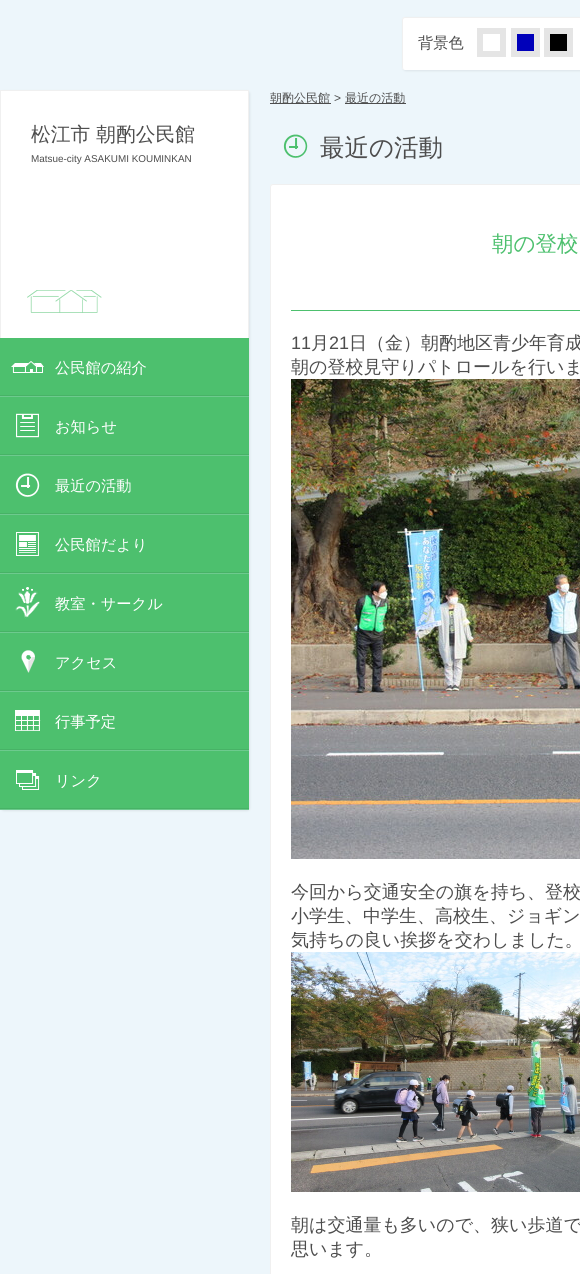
#include <cairo.h>
#include <math.h>
#include <stddef.h>

typedef struct { double x, y; const char *s; } line_t;
typedef struct { double x, y, w, h; unsigned color; } box_t;

static void ink(cairo_t *ctx, unsigned color) {
    cairo_set_source_rgb(ctx, (color >> 16) / 255.0, (color >> 8 & 255) / 255.0, (color & 255) / 255.0);
}

static void round_path(cairo_t *ctx, double x, double y, double w, double h, double r) {
    cairo_new_sub_path(ctx);
    cairo_arc(ctx, x + w - r, y + h - r, r, 0, M_PI / 2);
    cairo_arc(ctx, x + r, y + h - r, r, M_PI / 2, M_PI);
    cairo_arc(ctx, x + r, y + r, r, M_PI, 1.5 * M_PI);
    cairo_arc(ctx, x + w - r, y + r, r, 1.5 * M_PI, 2 * M_PI);
    cairo_close_path(ctx);
}

static void blur_box(cairo_t *ctx, double x, double y, double w, double h, double r, double blur, double alpha) {
    cairo_push_group_with_content(ctx, CAIRO_CONTENT_ALPHA);
    cairo_set_operator(ctx, CAIRO_OPERATOR_SOURCE);
    for (int i = 15; i >= -15 && fmin(w, h) + blur * i / 3 > 0; i -= 2) {
        double e = blur * i / 6;
        cairo_set_source_rgba(ctx, 0, 0, 0, alpha * erfc((i - 1) / 8.5) / 2);
        round_path(ctx, x - e, y - e, w + 2 * e, h + 2 * e, fmax(0, fmin(r + e + blur * .6, fmin(w, h) / 2 + e)));
        cairo_fill(ctx);
    }
    cairo_pattern_t *soft = cairo_pop_group(ctx);
    cairo_mask(ctx, soft);
    cairo_pattern_destroy(soft);
}

static void paste(cairo_t *ctx, const char *path, double x, double y, double w, double h) {
    cairo_surface_t *image = cairo_image_surface_create_from_png(path);
    cairo_save(ctx);
    cairo_set_source_surface(ctx, image, x, y);
    cairo_rectangle(ctx, x, y, w, h);
    cairo_fill(ctx);
    cairo_restore(ctx);
    cairo_surface_destroy(image);
}

int main(void) {
    cairo_surface_t *surface = cairo_image_surface_create(CAIRO_FORMAT_RGB24, 580, 1274);
    cairo_t *ctx = cairo_create(surface);
    cairo_font_options_t *options = cairo_font_options_create();
    cairo_font_options_set_hint_metrics(options, CAIRO_HINT_METRICS_OFF);
    cairo_font_options_set_hint_style(options, CAIRO_HINT_STYLE_NONE);
    cairo_set_font_options(ctx, options);
    cairo_set_miter_limit(ctx, 4);
    ink(ctx, 0xEDF6FB);
    cairo_paint(ctx);
    ink(ctx, 0xDCE4E9);
    blur_box(ctx, 403, 18, 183, 53, 3, 1, 1);
    ink(ctx, 0xFFFFFF);
    round_path(ctx, 402, 17, 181, 53, 3);
    cairo_fill(ctx);
    ink(ctx, 0xF0F0F0);
    cairo_set_fill_rule(ctx, CAIRO_FILL_RULE_EVEN_ODD);
    cairo_new_path(ctx);
    cairo_move_to(ctx, 405, 17);
    cairo_line_to(ctx, 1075, 17);
    cairo_curve_to(ctx, 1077, 17, 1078, 18, 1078, 20);
    cairo_line_to(ctx, 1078, 67);
    cairo_curve_to(ctx, 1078, 69, 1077, 70, 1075, 70);
    cairo_line_to(ctx, 405, 70);
    cairo_curve_to(ctx, 403, 70, 402, 69, 402, 67);
    cairo_line_to(ctx, 402, 20);
    cairo_curve_to(ctx, 402, 18, 403, 17, 405, 17);
    cairo_close_path(ctx);
    cairo_move_to(ctx, 405, 18);
    cairo_line_to(ctx, 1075, 18);
    cairo_curve_to(ctx, 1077, 18, 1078, 19, 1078, 20);
    cairo_line_to(ctx, 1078, 67);
    cairo_curve_to(ctx, 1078, 69, 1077, 70, 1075, 70);
    cairo_line_to(ctx, 405, 70);
    cairo_curve_to(ctx, 404, 70, 403, 69, 403, 67);
    cairo_line_to(ctx, 403, 20);
    cairo_curve_to(ctx, 403, 19, 404, 18, 405, 18);
    cairo_close_path(ctx);
    cairo_fill(ctx);
    cairo_select_font_face(ctx, "WenQuanYi Zen Hei Medium", CAIRO_FONT_SLANT_NORMAL, CAIRO_FONT_WEIGHT_NORMAL);
    cairo_set_font_size(ctx, 15.25);
    ink(ctx, 0x4D4D4D);
    cairo_move_to(ctx, 418, 48);
    cairo_show_text(ctx, "背景色");
    cairo_rectangle(ctx, 480, 31, 23, 23);
    ink(ctx, 0xE5E5E5);
    cairo_set_line_width(ctx, 6);
    cairo_stroke(ctx);
    ink(ctx, 0x0000BA);
    cairo_rectangle(ctx, 514, 31, 23, 23);
    cairo_fill_preserve(ctx);
    ink(ctx, 0xE5E5E5);
    cairo_stroke(ctx);
    ink(ctx, 0x000000);
    cairo_rectangle(ctx, 547, 31, 23, 23);
    cairo_fill_preserve(ctx);
    ink(ctx, 0xE5E5E5);
    cairo_stroke(ctx);
    ink(ctx, 0xDCE4E9);
    blur_box(ctx, 1, 91, 249, 720, 3, 1, 1);
    ink(ctx, 0xFFFFFF);
    cairo_rectangle(ctx, 1, 91, 247, 247);
    cairo_fill(ctx);
    paste(ctx, "media/1.png", 27, 290, 75, 23);
    {
        static const box_t items[] = {
            {0, 90, 249, 1, 0xF0F0F0},
            {248, 90, 1, 248, 0xF0F0F0},
            {0, 90, 1, 248, 0xF0F0F0},
        };
        for (size_t i = 0; i < sizeof items / sizeof *items; i++) {
            ink(ctx, items[i].color);
            cairo_rectangle(ctx, items[i].x, items[i].y, items[i].w, items[i].h);
            cairo_fill(ctx);
        }
    }
    cairo_set_font_size(ctx, 19.75);
    ink(ctx, 0x4D4D4D);
    cairo_move_to(ctx, 31, 141);
    cairo_show_text(ctx, "松江市 朝酌公民館");
    cairo_select_font_face(ctx, "Liberation Sans", CAIRO_FONT_SLANT_NORMAL, CAIRO_FONT_WEIGHT_NORMAL);
    cairo_set_font_size(ctx, 9.9);
    cairo_move_to(ctx, 31, 162);
    cairo_show_text(ctx, "Matsue-city ASAKUMI KOUMINKAN");
    ink(ctx, 0x6DCA8E);
    cairo_rectangle(ctx, 0, 396, 249, 1);
    cairo_fill(ctx);
    ink(ctx, 0x4DC06E);
    cairo_rectangle(ctx, 0, 338, 249, 57);
    cairo_fill(ctx);
    paste(ctx, "media/2.png", 11, 361, 33, 12);
    ink(ctx, 0x47B266);
    cairo_rectangle(ctx, 0, 395, 249, 1);
    cairo_fill(ctx);
    cairo_select_font_face(ctx, "WenQuanYi Zen Hei Medium", CAIRO_FONT_SLANT_NORMAL, CAIRO_FONT_WEIGHT_NORMAL);
    cairo_set_font_size(ctx, 15.25);
    ink(ctx, 0xFFFFFF);
    cairo_move_to(ctx, 55, 373);
    cairo_show_text(ctx, "公民館の紹介");
    ink(ctx, 0x6DCA8E);
    cairo_rectangle(ctx, 0, 455, 249, 1);
    cairo_fill(ctx);
    ink(ctx, 0x4DC06E);
    cairo_rectangle(ctx, 0, 397, 249, 57);
    cairo_fill(ctx);
    paste(ctx, "media/3.png", 16, 413, 23, 25);
    ink(ctx, 0x47B266);
    cairo_rectangle(ctx, 0, 454, 249, 1);
    cairo_fill(ctx);
    ink(ctx, 0xFFFFFF);
    cairo_move_to(ctx, 55, 432);
    cairo_show_text(ctx, "お知らせ");
    ink(ctx, 0x6DCA8E);
    cairo_rectangle(ctx, 0, 514, 249, 1);
    cairo_fill(ctx);
    ink(ctx, 0x4DC06E);
    cairo_rectangle(ctx, 0, 456, 249, 57);
    cairo_fill(ctx);
    paste(ctx, "media/4.png", 15, 473, 25, 24);
    ink(ctx, 0x47B266);
    cairo_rectangle(ctx, 0, 513, 249, 1);
    cairo_fill(ctx);
    ink(ctx, 0xFFFFFF);
    cairo_move_to(ctx, 55, 491);
    cairo_show_text(ctx, "最近の活動");
    ink(ctx, 0x6DCA8E);
    cairo_rectangle(ctx, 0, 573, 249, 1);
    cairo_fill(ctx);
    ink(ctx, 0x4DC06E);
    cairo_rectangle(ctx, 0, 515, 249, 57);
    cairo_fill(ctx);
    paste(ctx, "media/5.png", 16, 532, 23, 24);
    ink(ctx, 0x47B266);
    cairo_rectangle(ctx, 0, 572, 249, 1);
    cairo_fill(ctx);
    ink(ctx, 0xFFFFFF);
    cairo_move_to(ctx, 55, 550);
    cairo_show_text(ctx, "公民館だより");
    ink(ctx, 0x6DCA8E);
    cairo_rectangle(ctx, 0, 632, 249, 1);
    cairo_fill(ctx);
    ink(ctx, 0x4DC06E);
    cairo_rectangle(ctx, 0, 574, 249, 57);
    cairo_fill(ctx);
    paste(ctx, "media/6.png", 15, 587, 25, 32);
    ink(ctx, 0x47B266);
    cairo_rectangle(ctx, 0, 631, 249, 1);
    cairo_fill(ctx);
    ink(ctx, 0xFFFFFF);
    cairo_move_to(ctx, 55, 609);
    cairo_show_text(ctx, "教室・サークル");
    ink(ctx, 0x6DCA8E);
    cairo_rectangle(ctx, 0, 691, 249, 1);
    cairo_fill(ctx);
    ink(ctx, 0x4DC06E);
    cairo_rectangle(ctx, 0, 633, 249, 57);
    cairo_fill(ctx);
    paste(ctx, "media/7.png", 21, 650, 14, 23);
    ink(ctx, 0x47B266);
    cairo_rectangle(ctx, 0, 690, 249, 1);
    cairo_fill(ctx);
    ink(ctx, 0xFFFFFF);
    cairo_move_to(ctx, 55, 668);
    cairo_show_text(ctx, "アクセス");
    ink(ctx, 0x6DCA8E);
    cairo_rectangle(ctx, 0, 750, 249, 1);
    cairo_fill(ctx);
    ink(ctx, 0x4DC06E);
    cairo_rectangle(ctx, 0, 692, 249, 57);
    cairo_fill(ctx);
    paste(ctx, "media/8.png", 15, 710, 26, 21);
    ink(ctx, 0x47B266);
    cairo_rectangle(ctx, 0, 749, 249, 1);
    cairo_fill(ctx);
    ink(ctx, 0xFFFFFF);
    cairo_move_to(ctx, 55, 727);
    cairo_show_text(ctx, "行事予定");
    ink(ctx, 0x6DCA8E);
    cairo_rectangle(ctx, 0, 809, 249, 1);
    cairo_fill(ctx);
    ink(ctx, 0x4DC06E);
    cairo_rectangle(ctx, 0, 751, 249, 57);
    cairo_fill(ctx);
    paste(ctx, "media/9.png", 16, 770, 24, 20);
    ink(ctx, 0x47B266);
    cairo_rectangle(ctx, 0, 808, 249, 1);
    cairo_fill(ctx);
    ink(ctx, 0xFFFFFF);
    cairo_move_to(ctx, 55, 786);
    cairo_show_text(ctx, "リンク");
    ink(ctx, 0x4D4D4D);
    cairo_rectangle(ctx, 270, 103, 61, 1);
    cairo_fill(ctx);
    cairo_set_font_size(ctx, 12);
    cairo_move_to(ctx, 270, 102);
    cairo_show_text(ctx, "朝酌公民館");
    cairo_select_font_face(ctx, "Liberation Sans", CAIRO_FONT_SLANT_NORMAL, CAIRO_FONT_WEIGHT_NORMAL);
    cairo_move_to(ctx, 334, 102);
    cairo_show_text(ctx, ">");
    cairo_rectangle(ctx, 345, 103, 61, 1);
    cairo_fill(ctx);
    cairo_select_font_face(ctx, "WenQuanYi Zen Hei Medium", CAIRO_FONT_SLANT_NORMAL, CAIRO_FONT_WEIGHT_NORMAL);
    cairo_move_to(ctx, 345, 102);
    cairo_show_text(ctx, "最近の活動");
    paste(ctx, "media/10.png", 283, 134, 25, 24);
    cairo_set_font_size(ctx, 24.5);
    cairo_move_to(ctx, 320, 156);
    cairo_show_text(ctx, "最近の活動");
    ink(ctx, 0xFFFFFF);
    round_path(ctx, 270, 184, 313, 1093, 3);
    cairo_fill(ctx);
    ink(ctx, 0xF0F0F0);
    cairo_new_path(ctx);
    cairo_move_to(ctx, 273, 184);
    cairo_line_to(ctx, 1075, 184);
    cairo_curve_to(ctx, 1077, 184, 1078, 185, 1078, 187);
    cairo_line_to(ctx, 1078, 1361);
    cairo_curve_to(ctx, 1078, 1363, 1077, 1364, 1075, 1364);
    cairo_line_to(ctx, 273, 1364);
    cairo_curve_to(ctx, 271, 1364, 270, 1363, 270, 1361);
    cairo_line_to(ctx, 270, 187);
    cairo_curve_to(ctx, 270, 185, 271, 184, 273, 184);
    cairo_close_path(ctx);
    cairo_move_to(ctx, 273, 185);
    cairo_line_to(ctx, 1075, 185);
    cairo_curve_to(ctx, 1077, 185, 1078, 186, 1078, 187);
    cairo_line_to(ctx, 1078, 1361);
    cairo_curve_to(ctx, 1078, 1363, 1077, 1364, 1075, 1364);
    cairo_line_to(ctx, 273, 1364);
    cairo_curve_to(ctx, 272, 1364, 271, 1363, 271, 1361);
    cairo_line_to(ctx, 271, 187);
    cairo_curve_to(ctx, 271, 186, 272, 185, 273, 185);
    cairo_close_path(ctx);
    cairo_fill(ctx);
    ink(ctx, 0x4DC06E);
    cairo_rectangle(ctx, 291, 310, 289, 1);
    cairo_fill(ctx);
    cairo_set_font_size(ctx, 21.5);
    cairo_move_to(ctx, 492, 251);
    cairo_show_text(ctx, "朝の登校");
    cairo_select_font_face(ctx, "Liberation Sans", CAIRO_FONT_SLANT_NORMAL, CAIRO_FONT_WEIGHT_NORMAL);
    cairo_set_font_size(ctx, 18);
    ink(ctx, 0x4D4D4D);
    cairo_move_to(ctx, 291, 349);
    cairo_show_text(ctx, "11");
    cairo_select_font_face(ctx, "WenQuanYi Zen Hei Medium", CAIRO_FONT_SLANT_NORMAL, CAIRO_FONT_WEIGHT_NORMAL);
    cairo_move_to(ctx, 311, 349);
    cairo_show_text(ctx, "月");
    cairo_select_font_face(ctx, "Liberation Sans", CAIRO_FONT_SLANT_NORMAL, CAIRO_FONT_WEIGHT_NORMAL);
    cairo_move_to(ctx, 329, 349);
    cairo_show_text(ctx, "21");
    cairo_select_font_face(ctx, "WenQuanYi Zen Hei Medium", CAIRO_FONT_SLANT_NORMAL, CAIRO_FONT_WEIGHT_NORMAL);
    cairo_move_to(ctx, 349, 349);
    cairo_show_text(ctx, "日（金）朝酌地区青少年育成");
    cairo_move_to(ctx, 291, 373);
    cairo_show_text(ctx, "朝の登校見守りパトロールを行いま");
    paste(ctx, "media/11.png", 291, 379, 289, 480);
    {
        static const line_t items[] = {
            {291, 898, "今回から交通安全の旗を持ち、登校"},
            {291, 922, "小学生、中学生、高校生、ジョギン"},
            {291, 946, "気持ちの良い挨拶を交わしました。"},
        };
        for (size_t i = 0; i < sizeof items / sizeof *items; i++) {
            cairo_move_to(ctx, items[i].x, items[i].y);
            cairo_show_text(ctx, items[i].s);
        }
    }
    paste(ctx, "media/12.png", 291, 952, 289, 240);
    cairo_move_to(ctx, 291, 1231);
    cairo_show_text(ctx, "朝は交通量も多いので、狭い歩道で");
    cairo_move_to(ctx, 291, 1255);
    cairo_show_text(ctx, "思います。");
    cairo_surface_write_to_png(surface, "image.png");
    cairo_font_options_destroy(options);
    cairo_destroy(ctx);
    cairo_surface_destroy(surface);
    return 0;
}
